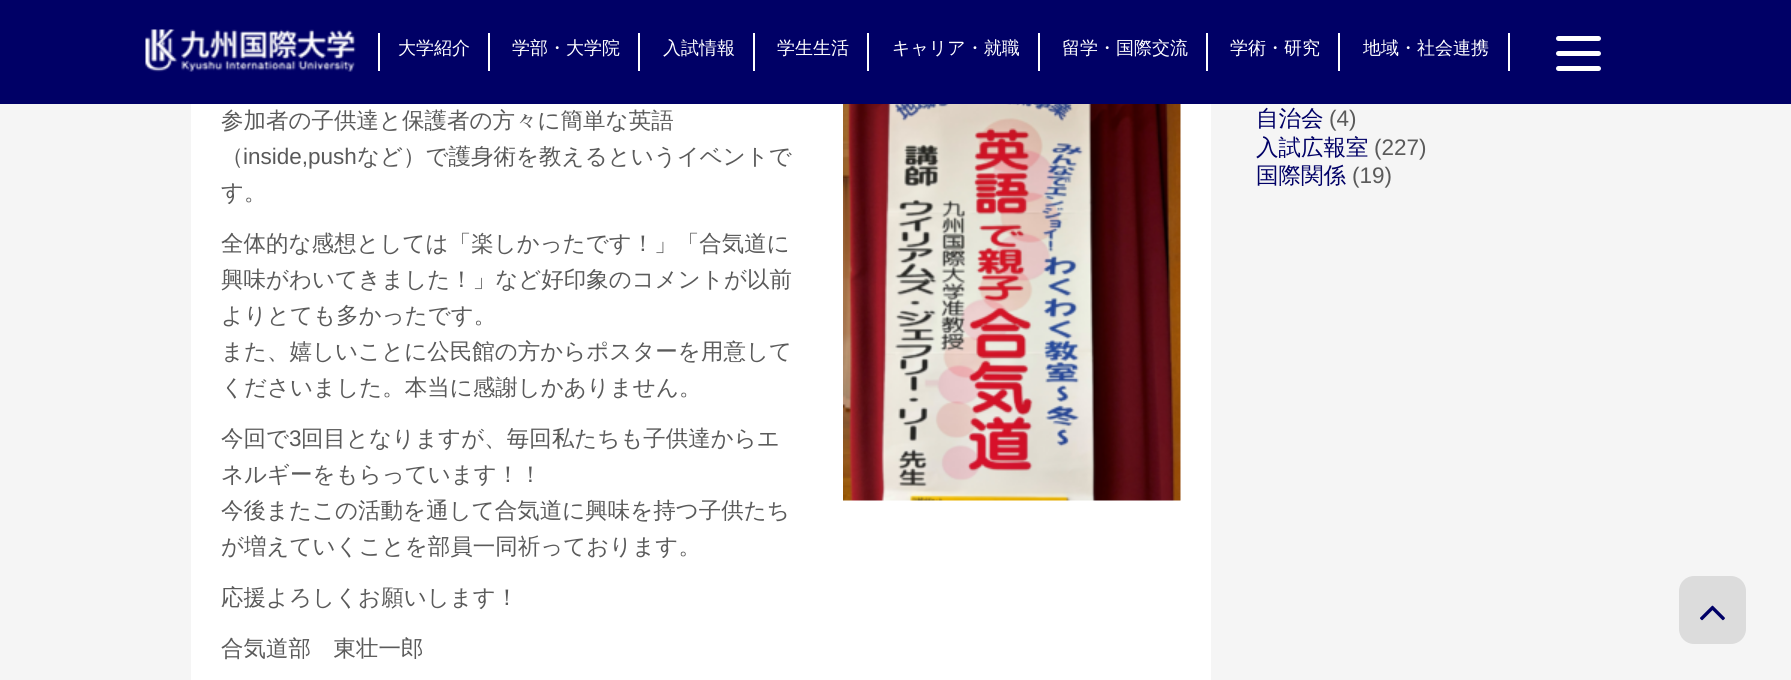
#include <cairo.h>
#include <math.h>
#include <stddef.h>

typedef struct { double x, y; const char *s; } line_t;

static void ink(cairo_t *ctx, unsigned color) {
    cairo_set_source_rgb(ctx, (color >> 16) / 255.0, (color >> 8 & 255) / 255.0, (color & 255) / 255.0);
}

static void round_path(cairo_t *ctx, double x, double y, double w, double h, double r) {
    cairo_new_sub_path(ctx);
    cairo_arc(ctx, x + w - r, y + h - r, r, 0, M_PI / 2);
    cairo_arc(ctx, x + r, y + h - r, r, M_PI / 2, M_PI);
    cairo_arc(ctx, x + r, y + r, r, M_PI, 1.5 * M_PI);
    cairo_arc(ctx, x + w - r, y + r, r, 1.5 * M_PI, 2 * M_PI);
    cairo_close_path(ctx);
}

static void paste(cairo_t *ctx, const char *path, double x, double y, double w, double h) {
    cairo_surface_t *image = cairo_image_surface_create_from_png(path);
    cairo_save(ctx);
    cairo_set_source_surface(ctx, image, x, y);
    cairo_rectangle(ctx, x, y, w, h);
    cairo_fill(ctx);
    cairo_restore(ctx);
    cairo_surface_destroy(image);
}

int main(void) {
    cairo_surface_t *surface = cairo_image_surface_create(CAIRO_FORMAT_RGB24, 1791, 680);
    cairo_t *ctx = cairo_create(surface);
    cairo_font_options_t *options = cairo_font_options_create();
    cairo_font_options_set_hint_metrics(options, CAIRO_HINT_METRICS_OFF);
    cairo_font_options_set_hint_style(options, CAIRO_HINT_STYLE_NONE);
    cairo_set_font_options(ctx, options);
    cairo_set_miter_limit(ctx, 4);
    ink(ctx, 0xF5F5F5);
    cairo_paint(ctx);
    ink(ctx, 0x000066);
    cairo_rectangle(ctx, 0, 0, 1791, 104);
    cairo_fill(ctx);
    paste(ctx, "media/1.png", 145, 29, 211, 43);
    ink(ctx, 0xFFFFFF);
    cairo_rectangle(ctx, 488, 33, 2, 38);
    cairo_fill(ctx);
    cairo_rectangle(ctx, 378, 33, 2, 38);
    cairo_fill(ctx);
    cairo_select_font_face(ctx, "WenQuanYi Zen Hei Medium", CAIRO_FONT_SLANT_NORMAL, CAIRO_FONT_WEIGHT_NORMAL);
    cairo_set_font_size(ctx, 18);
    cairo_move_to(ctx, 398, 54);
    cairo_show_text(ctx, "大学紹介");
    cairo_rectangle(ctx, 638, 33, 2, 38);
    cairo_fill(ctx);
    cairo_move_to(ctx, 512, 54);
    cairo_show_text(ctx, "学部・大学院");
    cairo_rectangle(ctx, 753, 33, 2, 38);
    cairo_fill(ctx);
    cairo_move_to(ctx, 663, 54);
    cairo_show_text(ctx, "入試情報");
    cairo_rectangle(ctx, 867, 33, 2, 38);
    cairo_fill(ctx);
    cairo_move_to(ctx, 777, 54);
    cairo_show_text(ctx, "学生生活");
    cairo_rectangle(ctx, 1038, 33, 2, 38);
    cairo_fill(ctx);
    cairo_move_to(ctx, 892, 54);
    cairo_show_text(ctx, "キャリア・就職");
    cairo_rectangle(ctx, 1206, 33, 2, 38);
    cairo_fill(ctx);
    cairo_move_to(ctx, 1062, 54);
    cairo_show_text(ctx, "留学・国際交流");
    cairo_rectangle(ctx, 1338, 33, 2, 38);
    cairo_fill(ctx);
    cairo_move_to(ctx, 1230, 54);
    cairo_show_text(ctx, "学術・研究");
    cairo_rectangle(ctx, 1508, 33, 2, 38);
    cairo_fill(ctx);
    cairo_move_to(ctx, 1363, 54);
    cairo_show_text(ctx, "地域・社会連携");
    round_path(ctx, 1556, 36, 45, 5, 2.5);
    cairo_fill(ctx);
    round_path(ctx, 1556, 51, 45, 5, 2.5);
    cairo_fill(ctx);
    round_path(ctx, 1556, 66, 45, 5, 2.5);
    cairo_fill(ctx);
    cairo_rectangle(ctx, 191, 104, 1020, 576);
    cairo_fill(ctx);
    cairo_set_font_size(ctx, 22.5);
    ink(ctx, 0x5A5A5A);
    cairo_move_to(ctx, 221, 128);
    cairo_show_text(ctx, "参加者の子供達と保護者の方々に簡単な英語");
    paste(ctx, "media/2.png", 843, 104, 338, 397);
    cairo_move_to(ctx, 221, 164);
    cairo_show_text(ctx, "（");
    cairo_select_font_face(ctx, "Liberation Sans", CAIRO_FONT_SLANT_NORMAL, CAIRO_FONT_WEIGHT_NORMAL);
    cairo_move_to(ctx, 243, 164);
    cairo_show_text(ctx, "inside,push");
    cairo_select_font_face(ctx, "WenQuanYi Zen Hei Medium", CAIRO_FONT_SLANT_NORMAL, CAIRO_FONT_WEIGHT_NORMAL);
    {
        static const line_t items[] = {
            {357, 164, "など）で護身術を教えるというイベントで"},
            {221, 200, "す。"},
            {221, 251, "全体的な感想としては「楽しかったです！」「合気道に"},
            {221, 287, "興味がわいてきました！」など好印象のコメントが以前"},
            {221, 323, "よりとても多かったです。"},
            {221, 359, "また、嬉しいことに公民館の方からポスターを用意して"},
            {221, 395, "くださいました。本当に感謝しかありません。"},
            {221, 446, "今回で"},
        };
        for (size_t i = 0; i < sizeof items / sizeof *items; i++) {
            cairo_move_to(ctx, items[i].x, items[i].y);
            cairo_show_text(ctx, items[i].s);
        }
    }
    cairo_select_font_face(ctx, "Liberation Sans", CAIRO_FONT_SLANT_NORMAL, CAIRO_FONT_WEIGHT_NORMAL);
    cairo_move_to(ctx, 289, 446);
    cairo_show_text(ctx, "3");
    cairo_select_font_face(ctx, "WenQuanYi Zen Hei Medium", CAIRO_FONT_SLANT_NORMAL, CAIRO_FONT_WEIGHT_NORMAL);
    {
        static const line_t items[] = {
            {301, 446, "回目となりますが、毎回私たちも子供達からエ"},
            {221, 482, "ネルギーをもらっています！！"},
            {221, 518, "今後またこの活動を通して合気道に興味を持つ子供たち"},
            {221, 554, "が増えていくことを部員一同祈っております。"},
            {221, 605, "応援よろしくお願いします！"},
            {221, 656, "合気道部　東壮一郎"},
        };
        for (size_t i = 0; i < sizeof items / sizeof *items; i++) {
            cairo_move_to(ctx, items[i].x, items[i].y);
            cairo_show_text(ctx, items[i].s);
        }
    }
    ink(ctx, 0x000066);
    cairo_move_to(ctx, 1256, 126);
    cairo_show_text(ctx, "自治会");
    cairo_select_font_face(ctx, "Liberation Sans", CAIRO_FONT_SLANT_NORMAL, CAIRO_FONT_WEIGHT_NORMAL);
    ink(ctx, 0x5A5A5A);
    cairo_move_to(ctx, 1329, 126);
    cairo_show_text(ctx, "(4)");
    cairo_select_font_face(ctx, "WenQuanYi Zen Hei Medium", CAIRO_FONT_SLANT_NORMAL, CAIRO_FONT_WEIGHT_NORMAL);
    ink(ctx, 0x000066);
    cairo_move_to(ctx, 1256, 155);
    cairo_show_text(ctx, "入試広報室");
    cairo_select_font_face(ctx, "Liberation Sans", CAIRO_FONT_SLANT_NORMAL, CAIRO_FONT_WEIGHT_NORMAL);
    ink(ctx, 0x5A5A5A);
    cairo_move_to(ctx, 1374, 155);
    cairo_show_text(ctx, "(227)");
    cairo_select_font_face(ctx, "WenQuanYi Zen Hei Medium", CAIRO_FONT_SLANT_NORMAL, CAIRO_FONT_WEIGHT_NORMAL);
    ink(ctx, 0x000066);
    cairo_move_to(ctx, 1256, 183);
    cairo_show_text(ctx, "国際関係");
    cairo_select_font_face(ctx, "Liberation Sans", CAIRO_FONT_SLANT_NORMAL, CAIRO_FONT_WEIGHT_NORMAL);
    ink(ctx, 0x5A5A5A);
    cairo_move_to(ctx, 1352, 183);
    cairo_show_text(ctx, "(19)");
    ink(ctx, 0xDCDCDC);
    round_path(ctx, 1679, 576, 67, 68, 15);
    cairo_fill(ctx);
    paste(ctx, "media/3.png", 1700, 605, 25, 16);
    cairo_surface_write_to_png(surface, "image.png");
    cairo_font_options_destroy(options);
    cairo_destroy(ctx);
    cairo_surface_destroy(surface);
    return 0;
}
